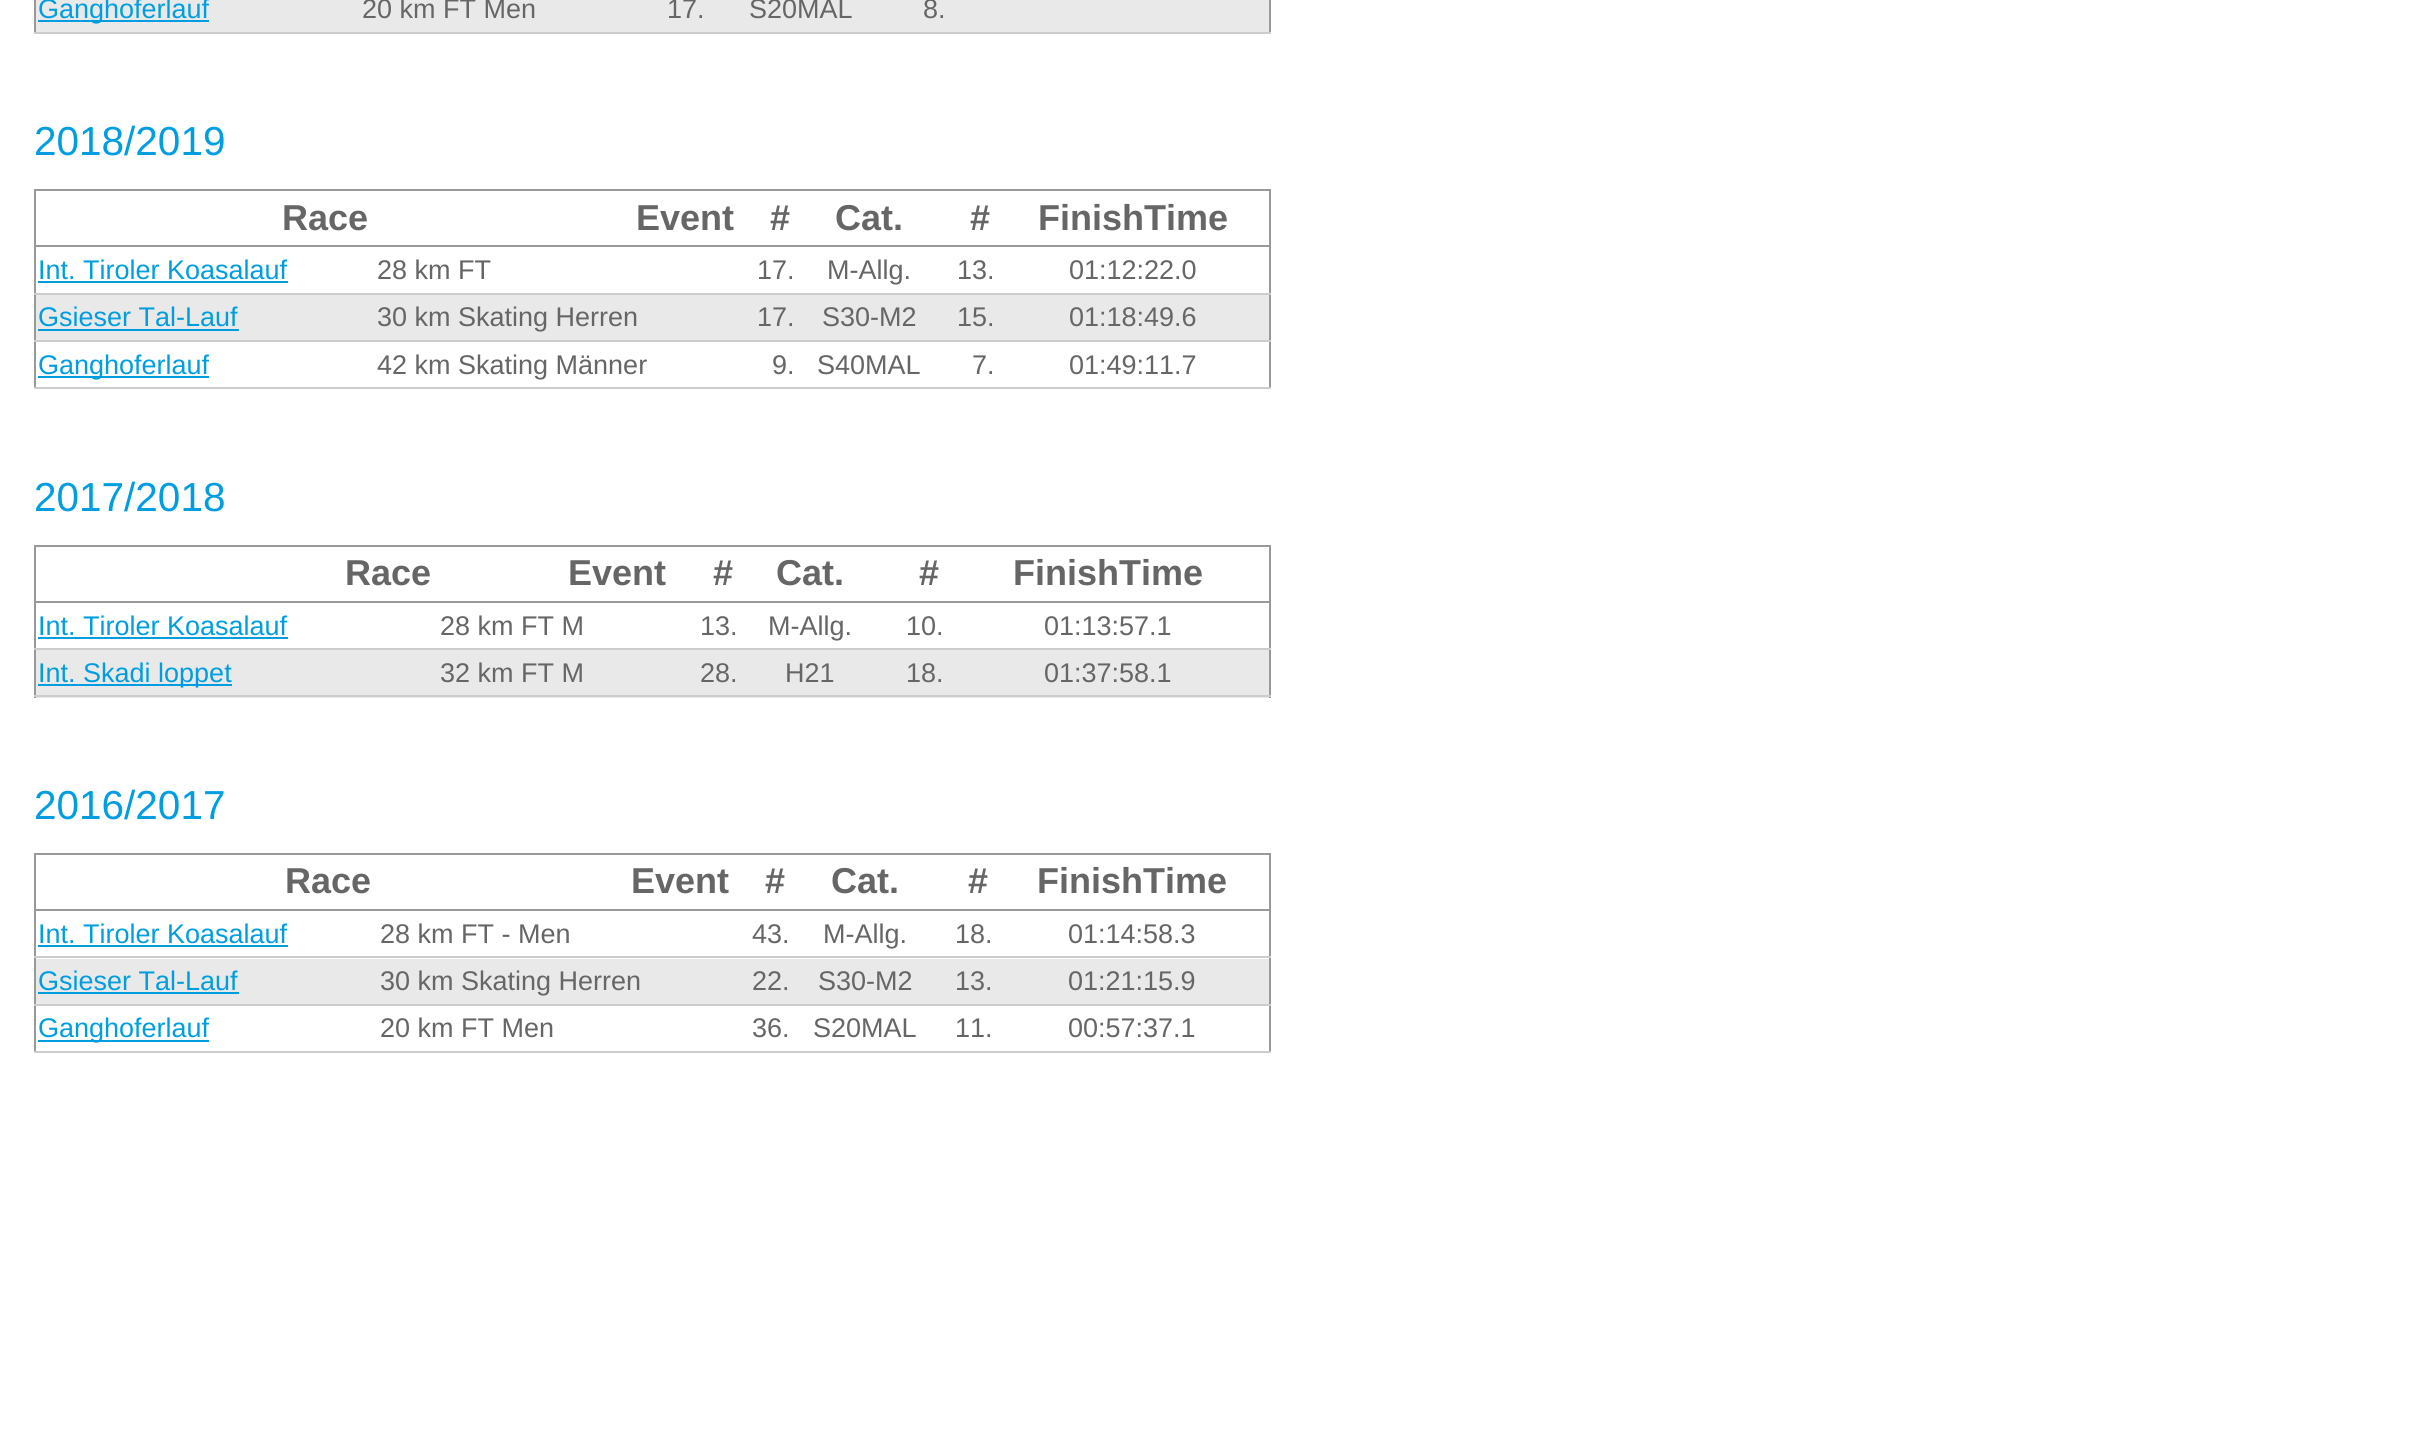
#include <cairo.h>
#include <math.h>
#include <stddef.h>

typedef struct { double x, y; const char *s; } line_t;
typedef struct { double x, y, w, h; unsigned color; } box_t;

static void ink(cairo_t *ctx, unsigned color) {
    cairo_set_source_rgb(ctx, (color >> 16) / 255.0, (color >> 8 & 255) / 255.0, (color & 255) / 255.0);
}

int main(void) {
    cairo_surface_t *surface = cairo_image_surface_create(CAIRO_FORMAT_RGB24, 2413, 1430);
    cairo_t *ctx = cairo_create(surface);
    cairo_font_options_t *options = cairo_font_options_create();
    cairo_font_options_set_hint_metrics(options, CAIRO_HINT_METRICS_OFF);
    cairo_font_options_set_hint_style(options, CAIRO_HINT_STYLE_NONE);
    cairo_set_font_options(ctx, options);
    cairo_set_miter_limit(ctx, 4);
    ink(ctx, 0xFFFFFF);
    cairo_paint(ctx);
    {
        static const box_t items[] = {
            {1269, 0, 2, 34, 0x999999},
            {34, 0, 2, 34, 0x999999},
            {36, 0, 1233, 32, 0xE9E9E9},
            {38, 20, 171, 2, 0x009EE0},
        };
        for (size_t i = 0; i < sizeof items / sizeof *items; i++) {
            ink(ctx, items[i].color);
            cairo_rectangle(ctx, items[i].x, items[i].y, items[i].w, items[i].h);
            cairo_fill(ctx);
        }
    }
    cairo_select_font_face(ctx, "Liberation Sans", CAIRO_FONT_SLANT_NORMAL, CAIRO_FONT_WEIGHT_NORMAL);
    cairo_set_font_size(ctx, 27);
    cairo_move_to(ctx, 38, 18);
    cairo_show_text(ctx, "Ganghoferlauf");
    ink(ctx, 0x666666);
    {
        static const line_t items[] = {
            {362, 18, "20 km FT Men"},
            {667, 18, "17."},
            {749, 18, "S20MAL"},
            {923, 18, "8."},
        };
        for (size_t i = 0; i < sizeof items / sizeof *items; i++) {
            cairo_move_to(ctx, items[i].x, items[i].y);
            cairo_show_text(ctx, items[i].s);
        }
    }
    ink(ctx, 0xCCCCCC);
    cairo_rectangle(ctx, 34, 32, 1237, 2);
    cairo_fill(ctx);
    cairo_set_font_size(ctx, 40.5);
    ink(ctx, 0x009EE0);
    cairo_move_to(ctx, 34, 155);
    cairo_show_text(ctx, "2018/2019");
    {
        static const box_t items[] = {
            {34, 189, 1237, 2, 0x999999},
            {1269, 189, 2, 200, 0x999999},
            {34, 189, 2, 200, 0x999999},
            {34, 245, 1237, 2, 0x999999},
        };
        for (size_t i = 0; i < sizeof items / sizeof *items; i++) {
            ink(ctx, items[i].color);
            cairo_rectangle(ctx, items[i].x, items[i].y, items[i].w, items[i].h);
            cairo_fill(ctx);
        }
    }
    cairo_select_font_face(ctx, "Liberation Sans", CAIRO_FONT_SLANT_NORMAL, CAIRO_FONT_WEIGHT_BOLD);
    cairo_set_font_size(ctx, 36);
    ink(ctx, 0x666666);
    {
        static const line_t items[] = {
            {282, 230, "Race"},
            {636, 230, "Event"},
            {770, 230, "#"},
            {835, 230, "Cat."},
            {970, 230, "#"},
            {1038, 230, "FinishTime"},
        };
        for (size_t i = 0; i < sizeof items / sizeof *items; i++) {
            cairo_move_to(ctx, items[i].x, items[i].y);
            cairo_show_text(ctx, items[i].s);
        }
    }
    cairo_select_font_face(ctx, "Liberation Sans", CAIRO_FONT_SLANT_NORMAL, CAIRO_FONT_WEIGHT_NORMAL);
    cairo_set_font_size(ctx, 27);
    ink(ctx, 0x009EE0);
    cairo_move_to(ctx, 38, 279);
    cairo_show_text(ctx, "Int. Tiroler Koasalauf");
    cairo_rectangle(ctx, 38, 281, 250, 2);
    cairo_fill(ctx);
    ink(ctx, 0x666666);
    {
        static const line_t items[] = {
            {377, 279, "28 km FT"},
            {757, 279, "17."},
            {827, 279, "M-Allg."},
            {957, 279, "13."},
        };
        for (size_t i = 0; i < sizeof items / sizeof *items; i++) {
            cairo_move_to(ctx, items[i].x, items[i].y);
            cairo_show_text(ctx, items[i].s);
        }
    }
    ink(ctx, 0xCCCCCC);
    cairo_rectangle(ctx, 34, 293, 1237, 2);
    cairo_fill(ctx);
    ink(ctx, 0x666666);
    cairo_move_to(ctx, 1069, 279);
    cairo_show_text(ctx, "01:12:22.0");
    ink(ctx, 0xE9E9E9);
    cairo_rectangle(ctx, 36, 295, 1233, 45);
    cairo_fill(ctx);
    ink(ctx, 0x009EE0);
    cairo_move_to(ctx, 38, 326);
    cairo_show_text(ctx, "Gsieser Tal-Lauf");
    cairo_rectangle(ctx, 38, 329, 201, 2);
    cairo_fill(ctx);
    ink(ctx, 0x666666);
    {
        static const line_t items[] = {
            {377, 326, "30 km Skating Herren"},
            {757, 326, "17."},
            {822, 326, "S30-M2"},
            {957, 326, "15."},
        };
        for (size_t i = 0; i < sizeof items / sizeof *items; i++) {
            cairo_move_to(ctx, items[i].x, items[i].y);
            cairo_show_text(ctx, items[i].s);
        }
    }
    ink(ctx, 0xCCCCCC);
    cairo_rectangle(ctx, 34, 340, 1237, 2);
    cairo_fill(ctx);
    ink(ctx, 0x666666);
    cairo_move_to(ctx, 1069, 326);
    cairo_show_text(ctx, "01:18:49.6");
    ink(ctx, 0x009EE0);
    cairo_rectangle(ctx, 38, 376, 171, 2);
    cairo_fill(ctx);
    cairo_move_to(ctx, 38, 374);
    cairo_show_text(ctx, "Ganghoferlauf");
    ink(ctx, 0x666666);
    {
        static const line_t items[] = {
            {377, 374, "42 km Skating Männer"},
            {772, 374, "9."},
            {817, 374, "S40MAL"},
            {972, 374, "7."},
        };
        for (size_t i = 0; i < sizeof items / sizeof *items; i++) {
            cairo_move_to(ctx, items[i].x, items[i].y);
            cairo_show_text(ctx, items[i].s);
        }
    }
    ink(ctx, 0xCCCCCC);
    cairo_rectangle(ctx, 34, 387, 1237, 2);
    cairo_fill(ctx);
    ink(ctx, 0x666666);
    cairo_move_to(ctx, 1069, 374);
    cairo_show_text(ctx, "01:49:11.7");
    cairo_set_font_size(ctx, 40.5);
    ink(ctx, 0x009EE0);
    cairo_move_to(ctx, 34, 511);
    cairo_show_text(ctx, "2017/2018");
    {
        static const box_t items[] = {
            {34, 545, 1237, 2, 0x999999},
            {1269, 545, 2, 153, 0x999999},
            {34, 545, 2, 153, 0x999999},
            {34, 601, 1237, 2, 0x999999},
        };
        for (size_t i = 0; i < sizeof items / sizeof *items; i++) {
            ink(ctx, items[i].color);
            cairo_rectangle(ctx, items[i].x, items[i].y, items[i].w, items[i].h);
            cairo_fill(ctx);
        }
    }
    cairo_select_font_face(ctx, "Liberation Sans", CAIRO_FONT_SLANT_NORMAL, CAIRO_FONT_WEIGHT_BOLD);
    cairo_set_font_size(ctx, 36);
    ink(ctx, 0x666666);
    {
        static const line_t items[] = {
            {345, 585, "Race"},
            {568, 585, "Event"},
            {713, 585, "#"},
            {776, 585, "Cat."},
            {919, 585, "#"},
            {1013, 585, "FinishTime"},
        };
        for (size_t i = 0; i < sizeof items / sizeof *items; i++) {
            cairo_move_to(ctx, items[i].x, items[i].y);
            cairo_show_text(ctx, items[i].s);
        }
    }
    cairo_select_font_face(ctx, "Liberation Sans", CAIRO_FONT_SLANT_NORMAL, CAIRO_FONT_WEIGHT_NORMAL);
    cairo_set_font_size(ctx, 27);
    ink(ctx, 0x009EE0);
    cairo_move_to(ctx, 38, 635);
    cairo_show_text(ctx, "Int. Tiroler Koasalauf");
    cairo_rectangle(ctx, 38, 637, 250, 2);
    cairo_fill(ctx);
    ink(ctx, 0x666666);
    {
        static const line_t items[] = {
            {440, 635, "28 km FT M"},
            {700, 635, "13."},
            {768, 635, "M-Allg."},
            {906, 635, "10."},
        };
        for (size_t i = 0; i < sizeof items / sizeof *items; i++) {
            cairo_move_to(ctx, items[i].x, items[i].y);
            cairo_show_text(ctx, items[i].s);
        }
    }
    ink(ctx, 0xCCCCCC);
    cairo_rectangle(ctx, 34, 648, 1237, 2);
    cairo_fill(ctx);
    ink(ctx, 0x666666);
    cairo_move_to(ctx, 1044, 635);
    cairo_show_text(ctx, "01:13:57.1");
    ink(ctx, 0xE9E9E9);
    cairo_rectangle(ctx, 36, 650, 1233, 48);
    cairo_fill(ctx);
    ink(ctx, 0x009EE0);
    cairo_rectangle(ctx, 38, 684, 194, 2);
    cairo_fill(ctx);
    cairo_move_to(ctx, 38, 682);
    cairo_show_text(ctx, "Int. Skadi loppet");
    ink(ctx, 0x666666);
    {
        static const line_t items[] = {
            {440, 682, "32 km FT M"},
            {700, 682, "28."},
            {785, 682, "H21"},
            {906, 682, "18."},
        };
        for (size_t i = 0; i < sizeof items / sizeof *items; i++) {
            cairo_move_to(ctx, items[i].x, items[i].y);
            cairo_show_text(ctx, items[i].s);
        }
    }
    ink(ctx, 0xCCCCCC);
    cairo_rectangle(ctx, 34, 695, 1237, 2);
    cairo_fill(ctx);
    ink(ctx, 0x666666);
    cairo_move_to(ctx, 1044, 682);
    cairo_show_text(ctx, "01:37:58.1");
    cairo_set_font_size(ctx, 40.5);
    ink(ctx, 0x009EE0);
    cairo_move_to(ctx, 34, 819);
    cairo_show_text(ctx, "2016/2017");
    {
        static const box_t items[] = {
            {34, 853, 1237, 2, 0x999999},
            {1269, 853, 2, 200, 0x999999},
            {34, 853, 2, 200, 0x999999},
            {34, 909, 1237, 2, 0x999999},
        };
        for (size_t i = 0; i < sizeof items / sizeof *items; i++) {
            ink(ctx, items[i].color);
            cairo_rectangle(ctx, items[i].x, items[i].y, items[i].w, items[i].h);
            cairo_fill(ctx);
        }
    }
    cairo_select_font_face(ctx, "Liberation Sans", CAIRO_FONT_SLANT_NORMAL, CAIRO_FONT_WEIGHT_BOLD);
    cairo_set_font_size(ctx, 36);
    ink(ctx, 0x666666);
    {
        static const line_t items[] = {
            {285, 893, "Race"},
            {631, 893, "Event"},
            {765, 893, "#"},
            {831, 893, "Cat."},
            {968, 893, "#"},
            {1037, 893, "FinishTime"},
        };
        for (size_t i = 0; i < sizeof items / sizeof *items; i++) {
            cairo_move_to(ctx, items[i].x, items[i].y);
            cairo_show_text(ctx, items[i].s);
        }
    }
    cairo_select_font_face(ctx, "Liberation Sans", CAIRO_FONT_SLANT_NORMAL, CAIRO_FONT_WEIGHT_NORMAL);
    cairo_set_font_size(ctx, 27);
    ink(ctx, 0x009EE0);
    cairo_move_to(ctx, 38, 943);
    cairo_show_text(ctx, "Int. Tiroler Koasalauf");
    cairo_rectangle(ctx, 38, 945, 250, 2);
    cairo_fill(ctx);
    ink(ctx, 0x666666);
    {
        static const line_t items[] = {
            {380, 943, "28 km FT - Men"},
            {752, 943, "43."},
            {823, 943, "M-Allg."},
            {955, 943, "18."},
        };
        for (size_t i = 0; i < sizeof items / sizeof *items; i++) {
            cairo_move_to(ctx, items[i].x, items[i].y);
            cairo_show_text(ctx, items[i].s);
        }
    }
    ink(ctx, 0xCCCCCC);
    cairo_rectangle(ctx, 34, 956, 1237, 2);
    cairo_fill(ctx);
    ink(ctx, 0x666666);
    cairo_move_to(ctx, 1068, 943);
    cairo_show_text(ctx, "01:14:58.3");
    ink(ctx, 0xE9E9E9);
    cairo_rectangle(ctx, 36, 959, 1233, 45);
    cairo_fill(ctx);
    ink(ctx, 0x009EE0);
    cairo_move_to(ctx, 38, 990);
    cairo_show_text(ctx, "Gsieser Tal-Lauf");
    cairo_rectangle(ctx, 38, 992, 201, 2);
    cairo_fill(ctx);
    ink(ctx, 0x666666);
    {
        static const line_t items[] = {
            {380, 990, "30 km Skating Herren"},
            {752, 990, "22."},
            {818, 990, "S30-M2"},
            {955, 990, "13."},
        };
        for (size_t i = 0; i < sizeof items / sizeof *items; i++) {
            cairo_move_to(ctx, items[i].x, items[i].y);
            cairo_show_text(ctx, items[i].s);
        }
    }
    ink(ctx, 0xCCCCCC);
    cairo_rectangle(ctx, 34, 1004, 1237, 2);
    cairo_fill(ctx);
    ink(ctx, 0x666666);
    cairo_move_to(ctx, 1068, 990);
    cairo_show_text(ctx, "01:21:15.9");
    ink(ctx, 0x009EE0);
    cairo_rectangle(ctx, 38, 1040, 171, 2);
    cairo_fill(ctx);
    cairo_move_to(ctx, 38, 1037);
    cairo_show_text(ctx, "Ganghoferlauf");
    ink(ctx, 0x666666);
    {
        static const line_t items[] = {
            {380, 1037, "20 km FT Men"},
            {752, 1037, "36."},
            {813, 1037, "S20MAL"},
            {955, 1037, "11."},
        };
        for (size_t i = 0; i < sizeof items / sizeof *items; i++) {
            cairo_move_to(ctx, items[i].x, items[i].y);
            cairo_show_text(ctx, items[i].s);
        }
    }
    ink(ctx, 0xCCCCCC);
    cairo_rectangle(ctx, 34, 1051, 1237, 2);
    cairo_fill(ctx);
    ink(ctx, 0x666666);
    cairo_move_to(ctx, 1068, 1037);
    cairo_show_text(ctx, "00:57:37.1");
    cairo_surface_write_to_png(surface, "image.png");
    cairo_font_options_destroy(options);
    cairo_destroy(ctx);
    cairo_surface_destroy(surface);
    return 0;
}
